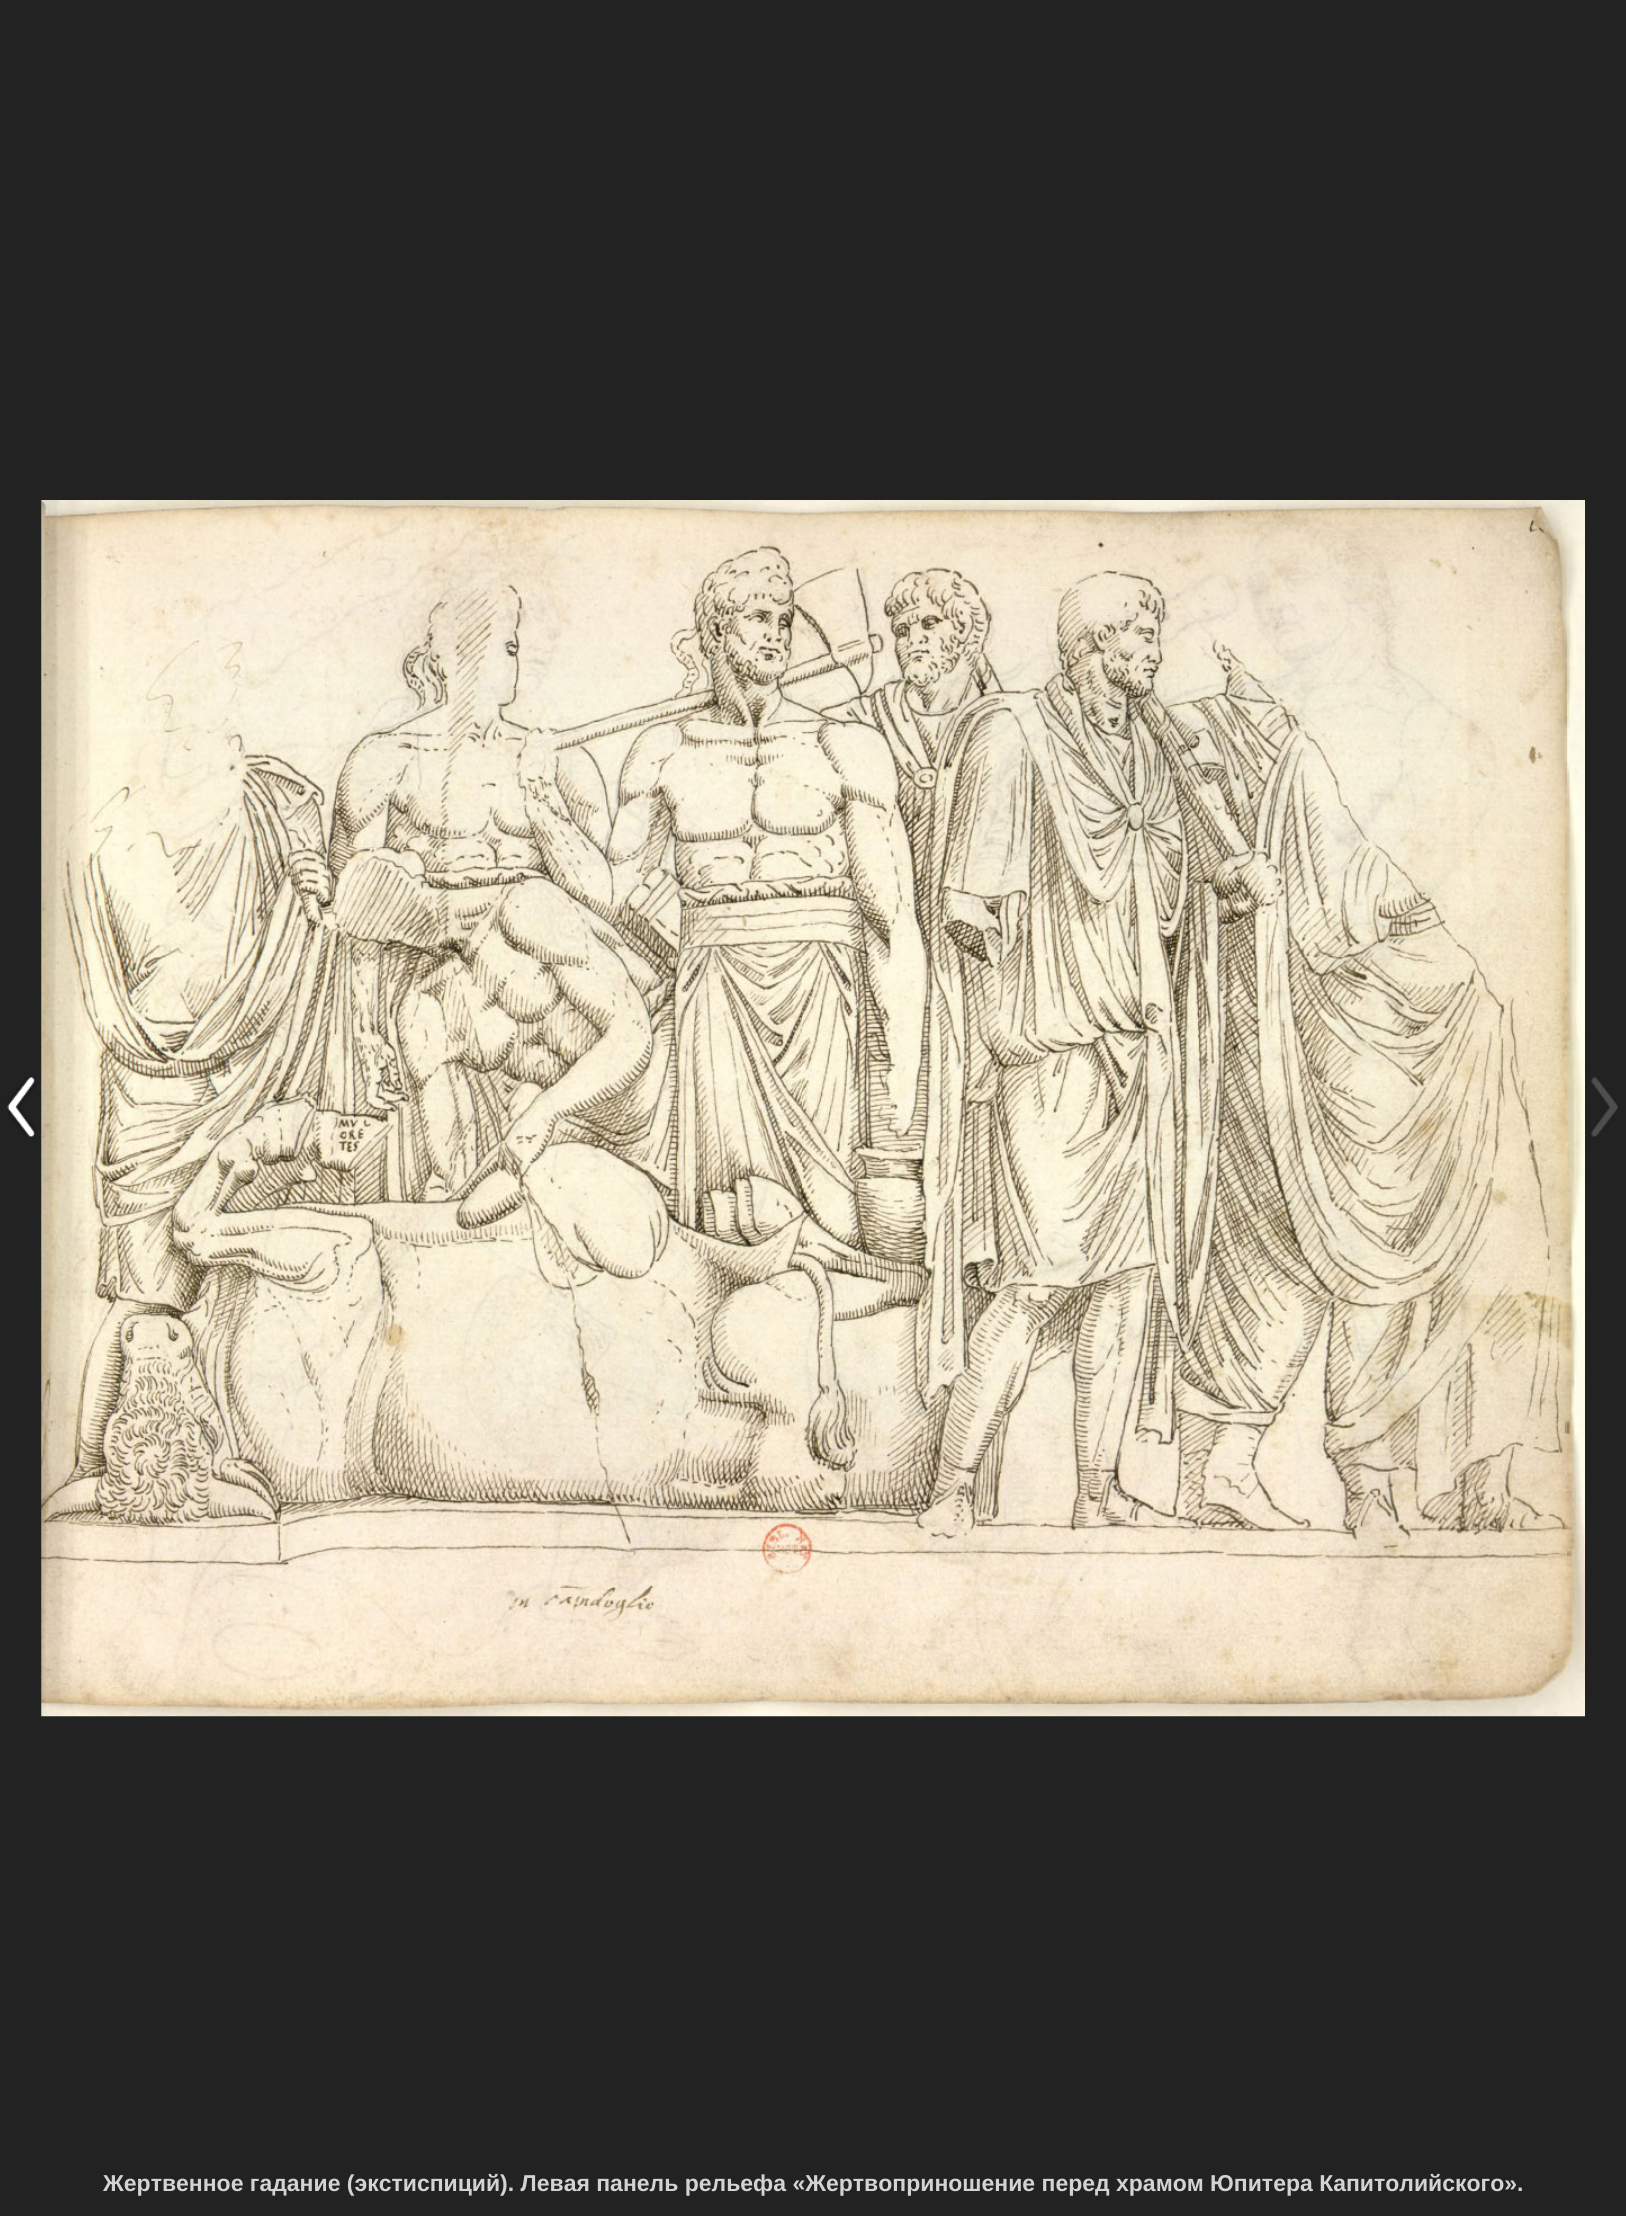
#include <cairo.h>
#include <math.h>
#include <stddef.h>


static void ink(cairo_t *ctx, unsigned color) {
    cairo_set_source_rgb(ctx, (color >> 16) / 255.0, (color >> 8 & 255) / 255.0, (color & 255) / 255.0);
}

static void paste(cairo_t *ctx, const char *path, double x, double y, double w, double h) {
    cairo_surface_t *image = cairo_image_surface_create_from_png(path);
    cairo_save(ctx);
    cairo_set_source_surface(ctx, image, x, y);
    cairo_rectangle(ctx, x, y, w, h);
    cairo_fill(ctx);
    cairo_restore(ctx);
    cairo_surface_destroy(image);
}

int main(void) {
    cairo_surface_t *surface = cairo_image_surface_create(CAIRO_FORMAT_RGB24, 1626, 2216);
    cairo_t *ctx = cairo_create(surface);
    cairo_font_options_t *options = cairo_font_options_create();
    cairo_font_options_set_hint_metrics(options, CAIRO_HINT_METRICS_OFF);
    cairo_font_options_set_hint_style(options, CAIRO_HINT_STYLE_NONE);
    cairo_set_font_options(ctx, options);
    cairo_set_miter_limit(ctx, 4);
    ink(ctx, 0x222222);
    cairo_paint(ctx);
    paste(ctx, "media/1.png", 7, 1076, 29, 61);
    paste(ctx, "media/2.png", 41, 500, 1544, 1217);
    paste(ctx, "media/3.png", 1591, 1077, 27, 60);
    cairo_select_font_face(ctx, "Liberation Sans", CAIRO_FONT_SLANT_NORMAL, CAIRO_FONT_WEIGHT_BOLD);
    cairo_set_font_size(ctx, 23);
    ink(ctx, 0xD3D3D3);
    cairo_move_to(ctx, 103, 2191);
    cairo_show_text(ctx, "Жертвенное гадание (экстиспиций). Левая панель рельефа «Жертвоприношение перед храмом Юпитера Капитолийского».");
    cairo_surface_write_to_png(surface, "image.png");
    cairo_font_options_destroy(options);
    cairo_destroy(ctx);
    cairo_surface_destroy(surface);
    return 0;
}
